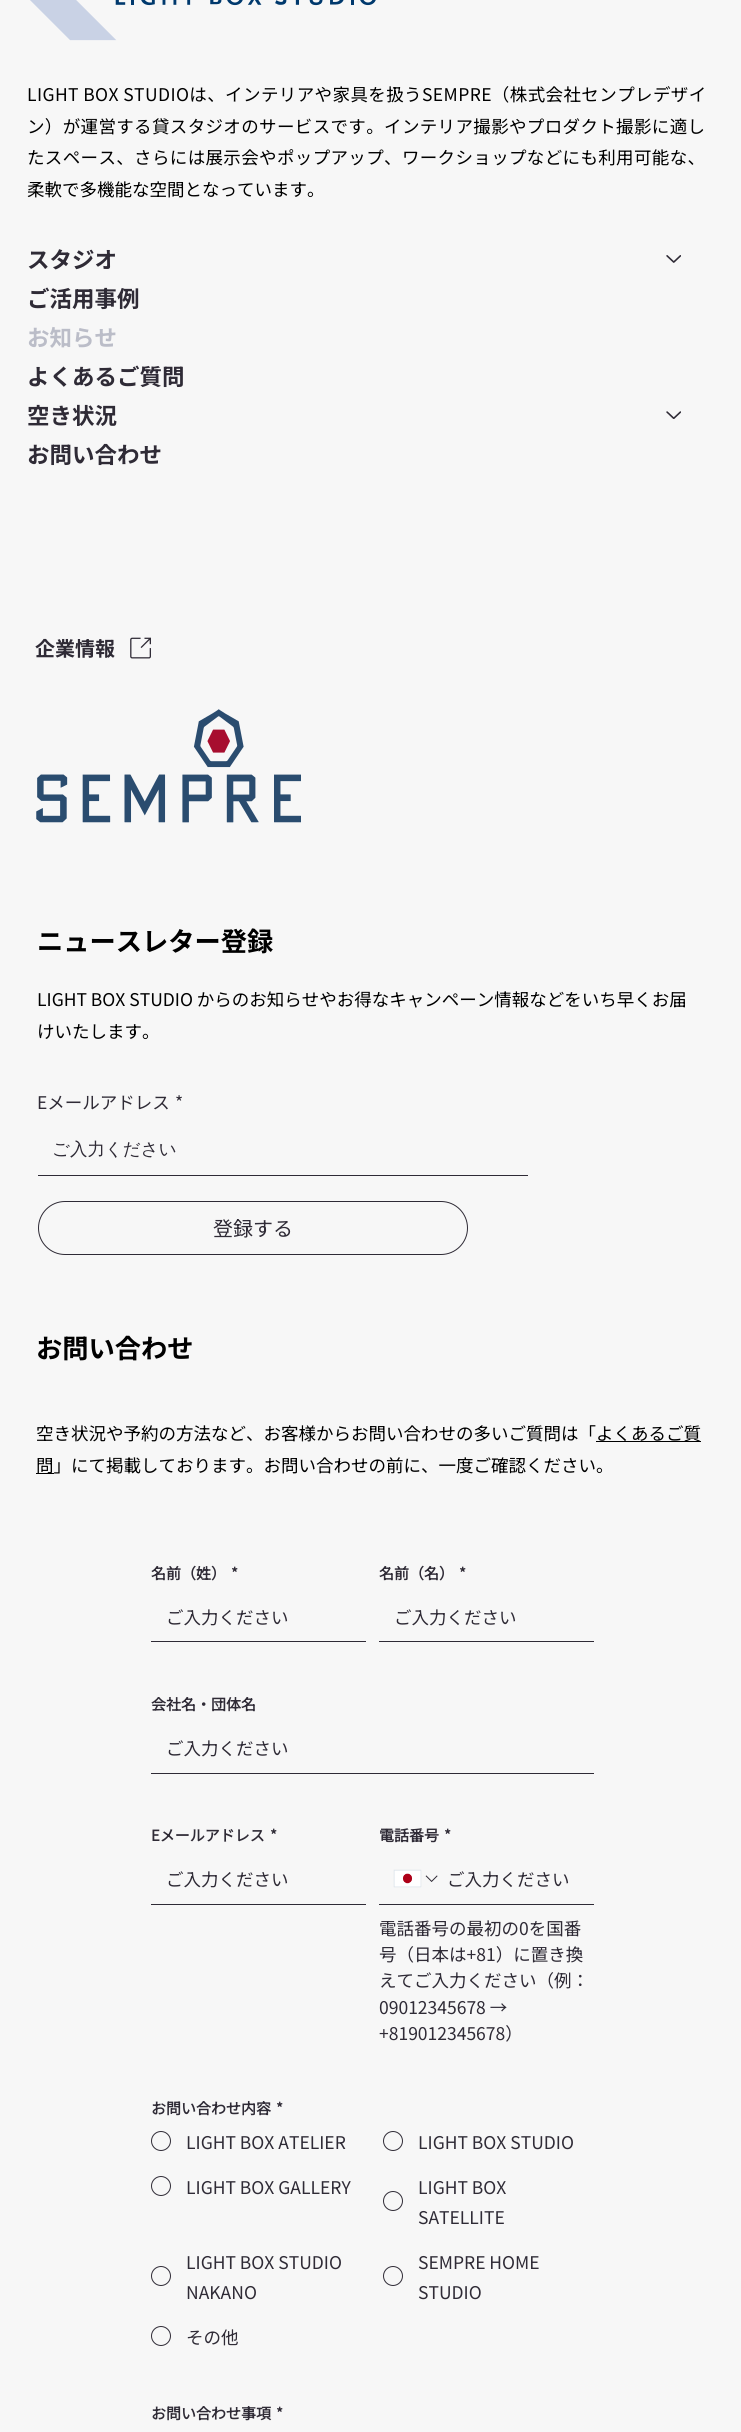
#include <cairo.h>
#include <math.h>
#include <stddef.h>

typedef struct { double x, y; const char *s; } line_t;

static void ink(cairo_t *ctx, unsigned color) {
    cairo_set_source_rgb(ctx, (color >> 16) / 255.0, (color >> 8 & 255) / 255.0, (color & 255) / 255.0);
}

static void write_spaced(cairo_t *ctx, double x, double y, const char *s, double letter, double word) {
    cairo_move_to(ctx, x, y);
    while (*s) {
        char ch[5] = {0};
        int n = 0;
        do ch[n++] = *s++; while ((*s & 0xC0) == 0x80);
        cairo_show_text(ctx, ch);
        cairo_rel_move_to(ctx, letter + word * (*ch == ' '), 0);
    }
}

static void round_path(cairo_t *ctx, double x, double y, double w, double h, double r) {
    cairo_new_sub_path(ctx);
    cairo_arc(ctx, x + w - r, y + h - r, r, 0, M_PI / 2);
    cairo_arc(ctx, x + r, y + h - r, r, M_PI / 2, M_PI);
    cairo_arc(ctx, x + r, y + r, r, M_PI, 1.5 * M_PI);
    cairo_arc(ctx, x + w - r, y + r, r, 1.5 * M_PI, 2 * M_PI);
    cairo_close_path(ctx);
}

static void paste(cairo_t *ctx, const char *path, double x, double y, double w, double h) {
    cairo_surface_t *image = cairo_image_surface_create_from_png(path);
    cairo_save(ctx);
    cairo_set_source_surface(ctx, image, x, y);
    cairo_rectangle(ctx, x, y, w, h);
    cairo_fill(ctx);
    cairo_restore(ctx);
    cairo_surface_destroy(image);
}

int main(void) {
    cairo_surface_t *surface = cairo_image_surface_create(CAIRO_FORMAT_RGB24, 741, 2432);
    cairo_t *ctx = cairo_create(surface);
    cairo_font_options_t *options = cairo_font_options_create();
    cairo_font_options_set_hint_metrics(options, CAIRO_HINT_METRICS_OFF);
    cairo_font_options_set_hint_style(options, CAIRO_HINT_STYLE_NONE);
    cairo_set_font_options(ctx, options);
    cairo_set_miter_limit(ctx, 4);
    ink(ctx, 0xF7F7F7);
    cairo_paint(ctx);
    paste(ctx, "media/1.png", 30, 0, 346, 41);
    cairo_select_font_face(ctx, "Noto Sans JP", CAIRO_FONT_SLANT_NORMAL, CAIRO_FONT_WEIGHT_NORMAL);
    cairo_set_font_size(ctx, 17.5);
    ink(ctx, 0x000000);
    write_spaced(ctx, 27, 101, "LIGHT BOX STUDIOは、インテリアや家具を扱うSEMPRE（株式会社センプレデザイ", 0.4, 0);
    write_spaced(ctx, 27, 133, "ン）が運営する貸スタジオのサービスです。インテリア撮影やプロダクト撮影に適し", 0.35, 0);
    write_spaced(ctx, 27, 164, "たスペース、さらには展示会やポップアップ、ワークショップなどにも利用可能な、", 0.35, 0);
    cairo_move_to(ctx, 27, 196);
    cairo_show_text(ctx, "柔軟で多機能な空間となっています。");
    cairo_select_font_face(ctx, "Noto Sans JP", CAIRO_FONT_SLANT_NORMAL, CAIRO_FONT_WEIGHT_BOLD);
    cairo_set_font_size(ctx, 22.5);
    ink(ctx, 0x2F2B36);
    cairo_move_to(ctx, 27, 268);
    cairo_show_text(ctx, "スタジオ");
    paste(ctx, "media/2.png", 666, 255, 15, 8);
    cairo_move_to(ctx, 27, 307);
    cairo_show_text(ctx, "ご活用事例");
    ink(ctx, 0xBBBDC8);
    cairo_move_to(ctx, 27, 346);
    cairo_show_text(ctx, "お知らせ");
    ink(ctx, 0x2F2B36);
    cairo_move_to(ctx, 27, 385);
    cairo_show_text(ctx, "よくあるご質問");
    cairo_move_to(ctx, 27, 424);
    cairo_show_text(ctx, "空き状況");
    paste(ctx, "media/3.png", 666, 411, 15, 8);
    cairo_move_to(ctx, 27, 463);
    cairo_show_text(ctx, "お問い合わせ");
    cairo_set_font_size(ctx, 20);
    cairo_move_to(ctx, 35, 656);
    cairo_show_text(ctx, "企業情報");
    paste(ctx, "media/4.png", 130, 637, 21, 22);
    paste(ctx, "media/5.png", 36, 709, 265, 114);
    cairo_set_font_size(ctx, 26.25);
    ink(ctx, 0x000000);
    cairo_move_to(ctx, 37, 951);
    cairo_show_text(ctx, "ニュースレター登録");
    cairo_select_font_face(ctx, "Noto Sans JP", CAIRO_FONT_SLANT_NORMAL, CAIRO_FONT_WEIGHT_NORMAL);
    cairo_set_font_size(ctx, 17.5);
    cairo_move_to(ctx, 37, 1006);
    cairo_show_text(ctx, "LIGHT BOX STUDIO からのお知らせやお得なキャンペーン情報などをいち早くお届");
    cairo_move_to(ctx, 37, 1038);
    cairo_show_text(ctx, "けいたします。");
    ink(ctx, 0x2F2B36);
    cairo_move_to(ctx, 37, 1109);
    cairo_show_text(ctx, "Eメールアドレス");
    cairo_move_to(ctx, 175, 1109);
    cairo_show_text(ctx, "*");
    cairo_rectangle(ctx, 38, 1175, 490, 1);
    cairo_fill(ctx);
    cairo_select_font_face(ctx, "WenQuanYi Zen Hei Medium", CAIRO_FONT_SLANT_NORMAL, CAIRO_FONT_WEIGHT_NORMAL);
    cairo_move_to(ctx, 52, 1155);
    cairo_show_text(ctx, "ご入力ください");
    round_path(ctx, 38.5, 1201.5, 429, 53, 26.5);
    cairo_set_line_width(ctx, 1);
    cairo_stroke(ctx);
    cairo_select_font_face(ctx, "Noto Sans JP", CAIRO_FONT_SLANT_NORMAL, CAIRO_FONT_WEIGHT_NORMAL);
    cairo_set_font_size(ctx, 20);
    cairo_move_to(ctx, 213, 1236);
    cairo_show_text(ctx, "登録する");
    cairo_select_font_face(ctx, "Noto Sans JP", CAIRO_FONT_SLANT_NORMAL, CAIRO_FONT_WEIGHT_BOLD);
    cairo_set_font_size(ctx, 26.25);
    ink(ctx, 0x000000);
    cairo_move_to(ctx, 36, 1358);
    cairo_show_text(ctx, "お問い合わせ");
    cairo_select_font_face(ctx, "Noto Sans JP", CAIRO_FONT_SLANT_NORMAL, CAIRO_FONT_WEIGHT_NORMAL);
    cairo_set_font_size(ctx, 17.5);
    cairo_move_to(ctx, 36, 1440);
    cairo_show_text(ctx, "空き状況や予約の方法など、お客様からお問い合わせの多いご質問は「");
    cairo_rectangle(ctx, 596, 1441, 105, 1);
    cairo_fill(ctx);
    cairo_move_to(ctx, 596, 1440);
    cairo_show_text(ctx, "よくあるご質");
    cairo_rectangle(ctx, 36, 1473, 18, 1);
    cairo_fill(ctx);
    cairo_move_to(ctx, 36, 1472);
    cairo_show_text(ctx, "問」にて掲載しております。お問い合わせの前に、一度ご確認ください。");
    cairo_select_font_face(ctx, "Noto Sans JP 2", CAIRO_FONT_SLANT_NORMAL, CAIRO_FONT_WEIGHT_BOLD);
    cairo_set_font_size(ctx, 15);
    ink(ctx, 0x2F2B36);
    {
        static const line_t items[] = {
            {151, 1579, "名前（姓）"},
            {231, 1579, "*"},
            {379, 1579, "名前（名）"},
            {459, 1579, "*"},
        };
        for (size_t i = 0; i < sizeof items / sizeof *items; i++) {
            cairo_move_to(ctx, items[i].x, items[i].y);
            cairo_show_text(ctx, items[i].s);
        }
    }
    cairo_rectangle(ctx, 151, 1641, 215, 1);
    cairo_fill(ctx);
    cairo_select_font_face(ctx, "Noto Sans JP", CAIRO_FONT_SLANT_NORMAL, CAIRO_FONT_WEIGHT_NORMAL);
    cairo_set_font_size(ctx, 17.5);
    cairo_move_to(ctx, 166, 1624);
    cairo_show_text(ctx, "ご入力ください");
    cairo_rectangle(ctx, 379, 1641, 215, 1);
    cairo_fill(ctx);
    cairo_move_to(ctx, 394, 1624);
    cairo_show_text(ctx, "ご入力ください");
    cairo_select_font_face(ctx, "Noto Sans JP 2", CAIRO_FONT_SLANT_NORMAL, CAIRO_FONT_WEIGHT_BOLD);
    cairo_set_font_size(ctx, 15);
    cairo_move_to(ctx, 151, 1710);
    cairo_show_text(ctx, "会社名・団体名");
    cairo_rectangle(ctx, 151, 1773, 443, 1);
    cairo_fill(ctx);
    cairo_select_font_face(ctx, "Noto Sans JP", CAIRO_FONT_SLANT_NORMAL, CAIRO_FONT_WEIGHT_NORMAL);
    cairo_set_font_size(ctx, 17.5);
    cairo_move_to(ctx, 166, 1755);
    cairo_show_text(ctx, "ご入力ください");
    cairo_select_font_face(ctx, "Noto Sans JP 2", CAIRO_FONT_SLANT_NORMAL, CAIRO_FONT_WEIGHT_BOLD);
    cairo_set_font_size(ctx, 15);
    {
        static const line_t items[] = {
            {151, 1841, "Eメールアドレス"},
            {270, 1841, "*"},
            {379, 1841, "電話番号"},
            {444, 1841, "*"},
        };
        for (size_t i = 0; i < sizeof items / sizeof *items; i++) {
            cairo_move_to(ctx, items[i].x, items[i].y);
            cairo_show_text(ctx, items[i].s);
        }
    }
    cairo_rectangle(ctx, 151, 1904, 215, 1);
    cairo_fill(ctx);
    cairo_select_font_face(ctx, "Noto Sans JP", CAIRO_FONT_SLANT_NORMAL, CAIRO_FONT_WEIGHT_NORMAL);
    cairo_set_font_size(ctx, 17.5);
    cairo_move_to(ctx, 166, 1886);
    cairo_show_text(ctx, "ご入力ください");
    cairo_rectangle(ctx, 379, 1904, 215, 1);
    cairo_fill(ctx);
    paste(ctx, "media/6.png", 393, 1869, 29, 19);
    paste(ctx, "media/7.png", 425, 1875, 13, 7);
    {
        static const line_t items[] = {
            {447, 1886, "ご入力ください"},
            {379, 1935, "電話番号の最初の0を国番"},
            {379, 1961, "号（日本は+81）に置き換"},
            {379, 1987, "えてご入力ください（例："},
            {379, 2014, "09012345678 →"},
            {379, 2040, "+819012345678）"},
        };
        for (size_t i = 0; i < sizeof items / sizeof *items; i++) {
            cairo_move_to(ctx, items[i].x, items[i].y);
            cairo_show_text(ctx, items[i].s);
        }
    }
    cairo_select_font_face(ctx, "Noto Sans JP 2", CAIRO_FONT_SLANT_NORMAL, CAIRO_FONT_WEIGHT_BOLD);
    cairo_set_font_size(ctx, 15);
    cairo_move_to(ctx, 151, 2114);
    cairo_show_text(ctx, "お問い合わせ内容");
    cairo_move_to(ctx, 276, 2114);
    cairo_show_text(ctx, "*");
    cairo_new_path(ctx);
    cairo_arc(ctx, 161, 2141, 9.5, 0, 2 * M_PI);
    cairo_stroke(ctx);
    cairo_select_font_face(ctx, "Noto Sans JP", CAIRO_FONT_SLANT_NORMAL, CAIRO_FONT_WEIGHT_NORMAL);
    cairo_set_font_size(ctx, 17.5);
    cairo_move_to(ctx, 186, 2149);
    cairo_show_text(ctx, "LIGHT BOX ATELIER");
    cairo_new_path(ctx);
    cairo_arc(ctx, 393, 2141, 9.5, 0, 2 * M_PI);
    cairo_stroke(ctx);
    cairo_move_to(ctx, 418, 2149);
    cairo_show_text(ctx, "LIGHT BOX STUDIO");
    cairo_new_path(ctx);
    cairo_arc(ctx, 161, 2186, 9.5, 0, 2 * M_PI);
    cairo_stroke(ctx);
    cairo_move_to(ctx, 186, 2194);
    cairo_show_text(ctx, "LIGHT BOX GALLERY");
    cairo_new_path(ctx);
    cairo_arc(ctx, 393, 2201, 9.5, 0, 2 * M_PI);
    cairo_stroke(ctx);
    cairo_move_to(ctx, 418, 2194);
    cairo_show_text(ctx, "LIGHT BOX");
    cairo_move_to(ctx, 418, 2224);
    cairo_show_text(ctx, "SATELLITE");
    cairo_new_path(ctx);
    cairo_arc(ctx, 161, 2276, 9.5, 0, 2 * M_PI);
    cairo_stroke(ctx);
    cairo_move_to(ctx, 186, 2269);
    cairo_show_text(ctx, "LIGHT BOX STUDIO");
    cairo_move_to(ctx, 186, 2299);
    cairo_show_text(ctx, "NAKANO");
    cairo_new_path(ctx);
    cairo_arc(ctx, 393, 2276, 9.5, 0, 2 * M_PI);
    cairo_stroke(ctx);
    cairo_move_to(ctx, 418, 2269);
    cairo_show_text(ctx, "SEMPRE HOME");
    cairo_move_to(ctx, 418, 2299);
    cairo_show_text(ctx, "STUDIO");
    cairo_new_path(ctx);
    cairo_arc(ctx, 161, 2336, 9.5, 0, 2 * M_PI);
    cairo_stroke(ctx);
    cairo_move_to(ctx, 186, 2344);
    cairo_show_text(ctx, "その他");
    cairo_select_font_face(ctx, "Noto Sans JP 2", CAIRO_FONT_SLANT_NORMAL, CAIRO_FONT_WEIGHT_BOLD);
    cairo_set_font_size(ctx, 15);
    cairo_move_to(ctx, 151, 2419);
    cairo_show_text(ctx, "お問い合わせ事項");
    cairo_move_to(ctx, 276, 2419);
    cairo_show_text(ctx, "*");
    cairo_surface_write_to_png(surface, "image.png");
    cairo_font_options_destroy(options);
    cairo_destroy(ctx);
    cairo_surface_destroy(surface);
    return 0;
}
